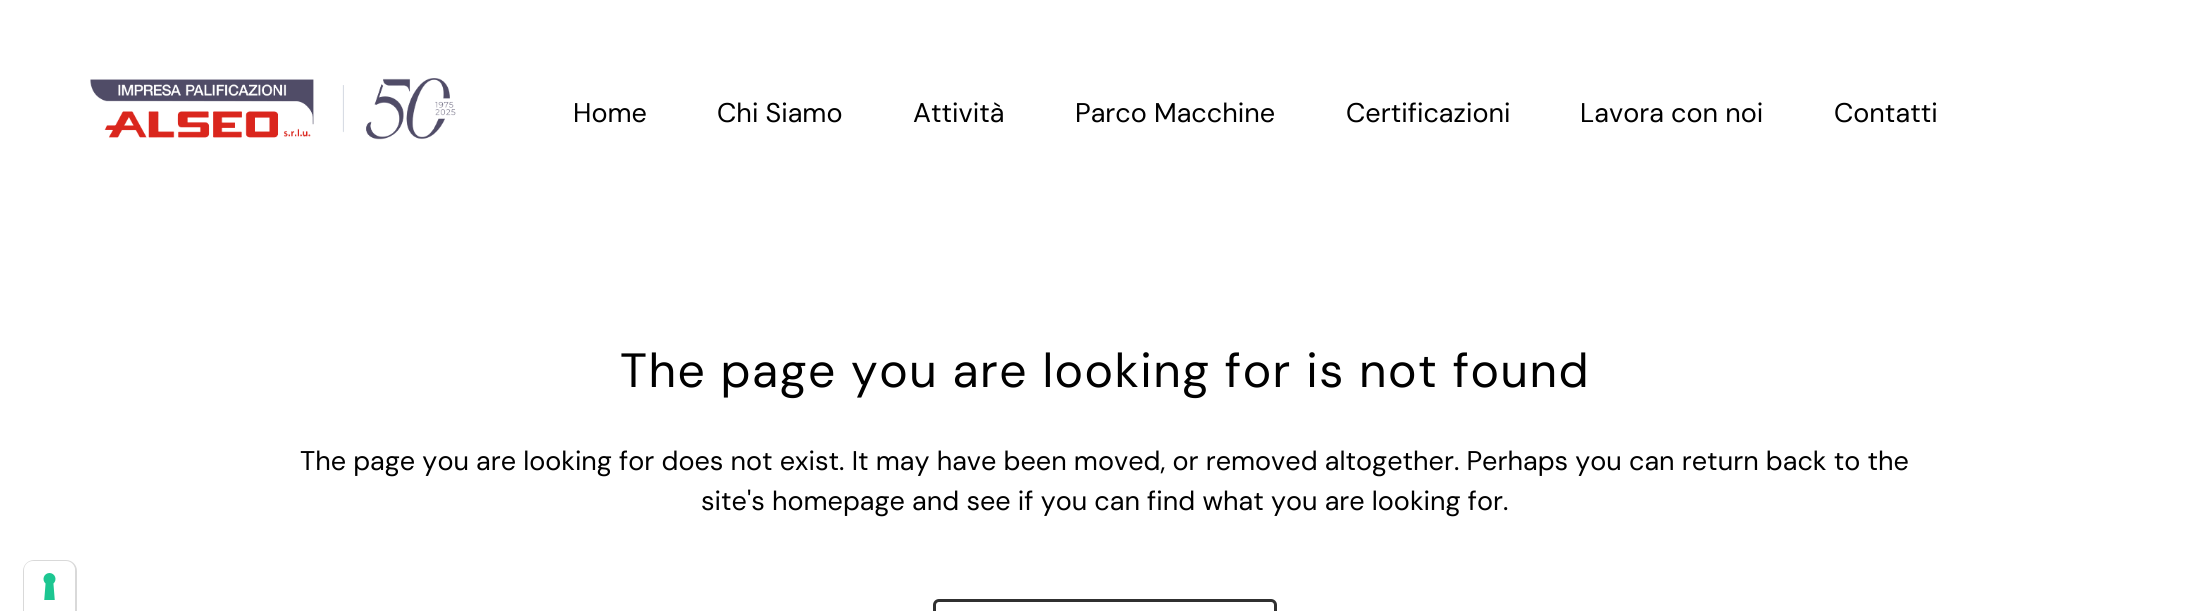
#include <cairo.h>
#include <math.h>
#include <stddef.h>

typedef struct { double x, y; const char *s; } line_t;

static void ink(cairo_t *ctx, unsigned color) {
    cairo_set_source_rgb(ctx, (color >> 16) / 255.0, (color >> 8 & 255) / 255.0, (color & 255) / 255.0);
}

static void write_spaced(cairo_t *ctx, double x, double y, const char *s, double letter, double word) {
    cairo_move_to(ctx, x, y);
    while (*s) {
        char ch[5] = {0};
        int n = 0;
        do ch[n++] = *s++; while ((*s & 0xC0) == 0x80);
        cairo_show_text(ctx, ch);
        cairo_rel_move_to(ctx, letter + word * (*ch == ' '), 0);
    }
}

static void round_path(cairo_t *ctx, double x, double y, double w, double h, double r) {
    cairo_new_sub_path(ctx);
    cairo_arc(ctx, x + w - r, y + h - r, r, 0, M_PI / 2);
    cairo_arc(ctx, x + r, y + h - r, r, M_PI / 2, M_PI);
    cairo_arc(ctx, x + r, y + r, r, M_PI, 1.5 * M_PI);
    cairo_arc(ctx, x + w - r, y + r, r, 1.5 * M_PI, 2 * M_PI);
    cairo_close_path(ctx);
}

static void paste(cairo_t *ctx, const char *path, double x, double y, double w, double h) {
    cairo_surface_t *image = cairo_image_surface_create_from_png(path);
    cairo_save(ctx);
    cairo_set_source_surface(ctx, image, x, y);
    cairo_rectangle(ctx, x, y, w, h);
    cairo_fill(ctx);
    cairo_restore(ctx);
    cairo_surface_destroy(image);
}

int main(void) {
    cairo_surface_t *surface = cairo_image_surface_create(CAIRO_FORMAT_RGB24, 2209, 611);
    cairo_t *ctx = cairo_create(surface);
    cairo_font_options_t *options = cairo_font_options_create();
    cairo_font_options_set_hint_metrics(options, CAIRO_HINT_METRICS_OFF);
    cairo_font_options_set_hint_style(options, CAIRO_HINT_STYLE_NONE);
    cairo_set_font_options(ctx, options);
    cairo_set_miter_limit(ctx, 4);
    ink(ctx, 0xFFFFFF);
    cairo_paint(ctx);
    paste(ctx, "media/1.png", 90, 78, 366, 62);
    cairo_select_font_face(ctx, "DM Sans", CAIRO_FONT_SLANT_NORMAL, CAIRO_FONT_WEIGHT_NORMAL);
    cairo_set_font_size(ctx, 27);
    ink(ctx, 0x000000);
    {
        static const line_t items[] = {
            {573, 122, "Home"},
            {717, 122, "Chi Siamo"},
            {913, 122, "Attività"},
            {1075, 122, "Parco Macchine"},
            {1346, 122, "Certificazioni"},
            {1580, 122, "Lavora con noi"},
            {1834, 122, "Contatti"},
        };
        for (size_t i = 0; i < sizeof items / sizeof *items; i++) {
            cairo_move_to(ctx, items[i].x, items[i].y);
            cairo_show_text(ctx, items[i].s);
        }
    }
    cairo_set_font_size(ctx, 48);
    write_spaced(ctx, 620, 387, "The page you are looking for is not found", 1.5, 0);
    cairo_set_font_size(ctx, 27);
    cairo_move_to(ctx, 300, 470);
    cairo_show_text(ctx, "The page you are looking for does not exist. It may have been moved, or removed altogether. Perhaps you can return back to the");
    cairo_move_to(ctx, 701, 510);
    cairo_show_text(ctx, "site's homepage and see if you can find what you are looking for.");
    round_path(ctx, 934.5, 600.5, 341, 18, 4.5);
    ink(ctx, 0x303030);
    cairo_set_line_width(ctx, 3);
    cairo_stroke(ctx);
    cairo_new_path(ctx);
    cairo_move_to(ctx, 34, 561);
    cairo_line_to(ctx, 66, 561);
    cairo_curve_to(ctx, 71.5, 561, 76, 565.5, 76, 571);
    cairo_line_to(ctx, 76, 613);
    cairo_line_to(ctx, 24, 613);
    cairo_line_to(ctx, 24, 571);
    cairo_curve_to(ctx, 24, 565.5, 28.5, 561, 34, 561);
    cairo_close_path(ctx);
    ink(ctx, 0xD9D9D9);
    cairo_set_line_width(ctx, 2);
    cairo_stroke(ctx);
    ink(ctx, 0xFFFFFF);
    cairo_new_path(ctx);
    cairo_move_to(ctx, 33, 561);
    cairo_line_to(ctx, 66, 561);
    cairo_curve_to(ctx, 71, 561, 75, 565, 75, 570);
    cairo_line_to(ctx, 75, 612);
    cairo_line_to(ctx, 24, 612);
    cairo_line_to(ctx, 24, 570);
    cairo_curve_to(ctx, 24, 565, 28, 561, 33, 561);
    cairo_close_path(ctx);
    cairo_fill(ctx);
    paste(ctx, "media/2.png", 43, 573, 13, 27);
    cairo_surface_write_to_png(surface, "image.png");
    cairo_font_options_destroy(options);
    cairo_destroy(ctx);
    cairo_surface_destroy(surface);
    return 0;
}
